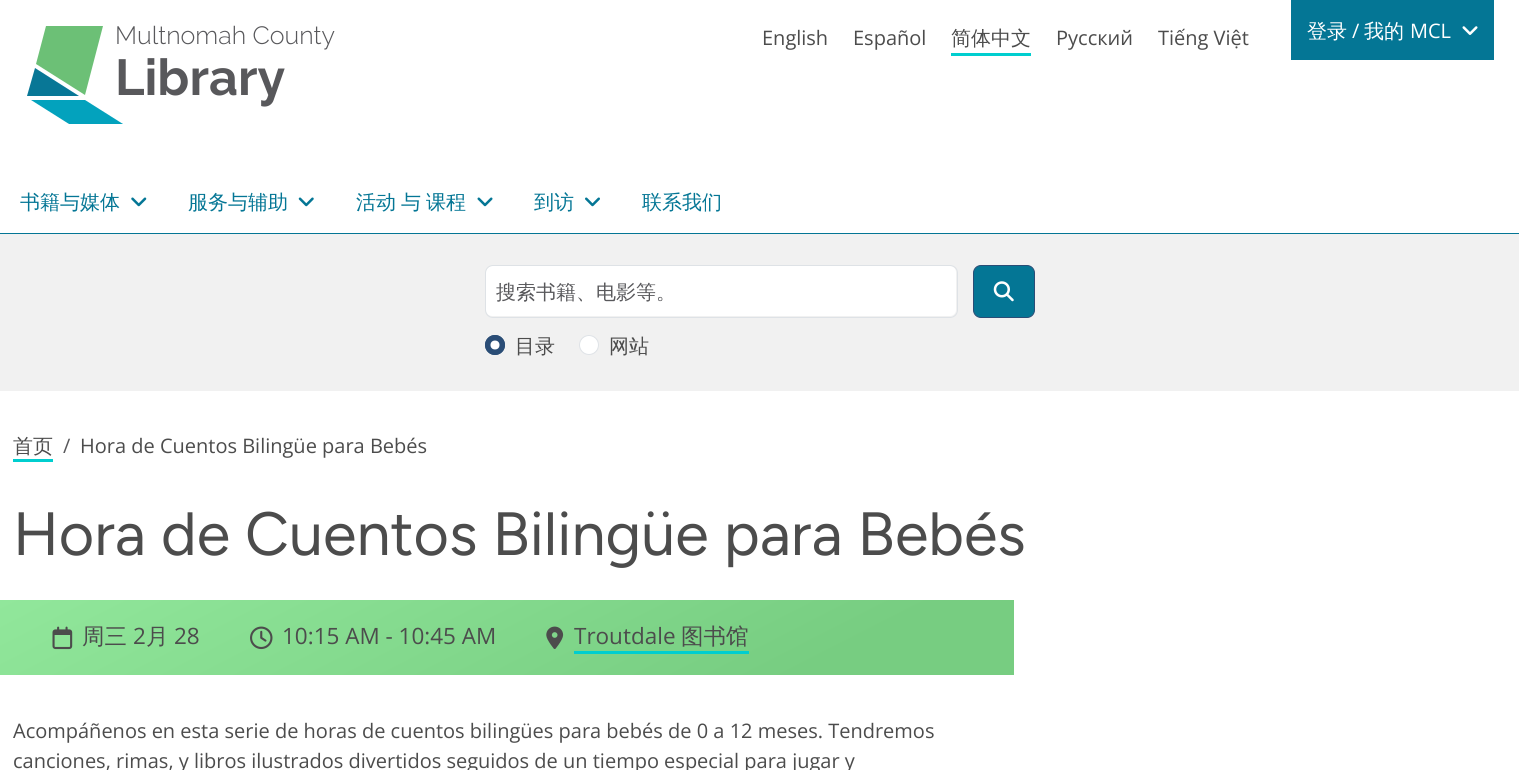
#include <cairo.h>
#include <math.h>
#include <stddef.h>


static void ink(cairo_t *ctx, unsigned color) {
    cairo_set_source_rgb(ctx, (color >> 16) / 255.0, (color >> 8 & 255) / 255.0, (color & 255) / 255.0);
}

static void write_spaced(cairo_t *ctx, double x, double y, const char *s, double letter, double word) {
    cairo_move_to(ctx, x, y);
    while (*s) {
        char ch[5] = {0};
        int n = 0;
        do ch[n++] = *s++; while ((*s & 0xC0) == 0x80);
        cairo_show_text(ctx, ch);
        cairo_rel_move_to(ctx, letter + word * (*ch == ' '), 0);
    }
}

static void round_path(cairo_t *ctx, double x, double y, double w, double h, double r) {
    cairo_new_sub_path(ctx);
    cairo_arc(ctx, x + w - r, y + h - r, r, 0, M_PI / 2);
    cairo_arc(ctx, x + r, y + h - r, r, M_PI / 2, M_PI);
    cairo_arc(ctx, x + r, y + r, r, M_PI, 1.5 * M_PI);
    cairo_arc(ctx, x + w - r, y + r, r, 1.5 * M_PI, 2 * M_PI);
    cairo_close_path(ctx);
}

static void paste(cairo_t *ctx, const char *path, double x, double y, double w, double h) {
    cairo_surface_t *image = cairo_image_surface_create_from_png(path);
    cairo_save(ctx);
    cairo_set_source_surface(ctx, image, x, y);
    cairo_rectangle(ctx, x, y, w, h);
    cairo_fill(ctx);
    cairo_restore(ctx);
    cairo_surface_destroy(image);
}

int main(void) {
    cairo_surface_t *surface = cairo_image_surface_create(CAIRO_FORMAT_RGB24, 1519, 770);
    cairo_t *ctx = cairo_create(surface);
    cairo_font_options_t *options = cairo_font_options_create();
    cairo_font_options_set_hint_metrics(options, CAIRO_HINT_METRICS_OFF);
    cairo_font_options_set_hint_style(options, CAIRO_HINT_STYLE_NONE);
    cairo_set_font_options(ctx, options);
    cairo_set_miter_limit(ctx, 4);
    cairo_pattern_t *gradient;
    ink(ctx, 0xFFFFFF);
    cairo_paint(ctx);
    ink(ctx, 0x6CC076);
    cairo_new_path(ctx);
    cairo_move_to(ctx, 36, 64);
    cairo_line_to(ctx, 46, 26);
    cairo_line_to(ctx, 103, 26);
    cairo_line_to(ctx, 85, 95);
    cairo_close_path(ctx);
    cairo_fill(ctx);
    ink(ctx, 0x087796);
    cairo_new_path(ctx);
    cairo_move_to(ctx, 35, 68);
    cairo_line_to(ctx, 27, 96);
    cairo_line_to(ctx, 79, 96);
    cairo_close_path(ctx);
    cairo_fill(ctx);
    ink(ctx, 0x03A2BD);
    cairo_new_path(ctx);
    cairo_move_to(ctx, 31, 100);
    cairo_line_to(ctx, 69, 124);
    cairo_line_to(ctx, 123, 124);
    cairo_line_to(ctx, 85, 100);
    cairo_close_path(ctx);
    cairo_fill(ctx);
    cairo_select_font_face(ctx, "Raleway Light", CAIRO_FONT_SLANT_NORMAL, CAIRO_FONT_WEIGHT_NORMAL);
    cairo_set_font_size(ctx, 25);
    ink(ctx, 0x58585B);
    cairo_move_to(ctx, 115, 44);
    cairo_show_text(ctx, "Multnomah County");
    cairo_select_font_face(ctx, "Raleway", CAIRO_FONT_SLANT_NORMAL, CAIRO_FONT_WEIGHT_BOLD);
    cairo_set_font_size(ctx, 50.5);
    cairo_move_to(ctx, 115, 95);
    cairo_show_text(ctx, "Library");
    cairo_select_font_face(ctx, "Open Sans", CAIRO_FONT_SLANT_NORMAL, CAIRO_FONT_WEIGHT_NORMAL);
    cairo_set_font_size(ctx, 20);
    ink(ctx, 0x4C4C4C);
    cairo_move_to(ctx, 762, 45);
    cairo_show_text(ctx, "English");
    cairo_move_to(ctx, 853, 45);
    cairo_show_text(ctx, "Español");
    cairo_select_font_face(ctx, "WenQuanYi Zen Hei Medium", CAIRO_FONT_SLANT_NORMAL, CAIRO_FONT_WEIGHT_NORMAL);
    cairo_move_to(ctx, 951, 45);
    cairo_show_text(ctx, "简体中文");
    ink(ctx, 0x00CECF);
    cairo_rectangle(ctx, 951, 53, 80, 3);
    cairo_fill(ctx);
    cairo_select_font_face(ctx, "Open Sans", CAIRO_FONT_SLANT_NORMAL, CAIRO_FONT_WEIGHT_NORMAL);
    ink(ctx, 0x4C4C4C);
    cairo_move_to(ctx, 1056, 45);
    cairo_show_text(ctx, "Русский");
    cairo_move_to(ctx, 1158, 45);
    cairo_show_text(ctx, "Tiếng Việt");
    ink(ctx, 0x047695);
    cairo_rectangle(ctx, 1291, 0, 203, 60);
    cairo_fill(ctx);
    cairo_select_font_face(ctx, "WenQuanYi Zen Hei Medium", CAIRO_FONT_SLANT_NORMAL, CAIRO_FONT_WEIGHT_NORMAL);
    ink(ctx, 0xFFFFFF);
    cairo_move_to(ctx, 1307, 38);
    cairo_show_text(ctx, "登录");
    cairo_select_font_face(ctx, "Open Sans", CAIRO_FONT_SLANT_NORMAL, CAIRO_FONT_WEIGHT_NORMAL);
    cairo_move_to(ctx, 1352, 38);
    cairo_show_text(ctx, "/");
    cairo_select_font_face(ctx, "WenQuanYi Zen Hei Medium", CAIRO_FONT_SLANT_NORMAL, CAIRO_FONT_WEIGHT_NORMAL);
    cairo_move_to(ctx, 1364, 38);
    cairo_show_text(ctx, "我的");
    cairo_select_font_face(ctx, "Open Sans", CAIRO_FONT_SLANT_NORMAL, CAIRO_FONT_WEIGHT_NORMAL);
    cairo_move_to(ctx, 1410, 38);
    cairo_show_text(ctx, "MCL");
    paste(ctx, "media/1.png", 1462, 26, 16, 9);
    cairo_select_font_face(ctx, "WenQuanYi Zen Hei Medium", CAIRO_FONT_SLANT_NORMAL, CAIRO_FONT_WEIGHT_NORMAL);
    ink(ctx, 0x047695);
    cairo_move_to(ctx, 20, 209);
    cairo_show_text(ctx, "书籍与媒体");
    paste(ctx, "media/2.png", 131, 197, 16, 10);
    cairo_move_to(ctx, 188, 209);
    cairo_show_text(ctx, "服务与辅助");
    paste(ctx, "media/3.png", 298, 197, 16, 10);
    write_spaced(ctx, 356, 209, "活动 与 课程", 0, -1);
    paste(ctx, "media/4.png", 477, 197, 16, 10);
    cairo_move_to(ctx, 534, 209);
    cairo_show_text(ctx, "到访");
    paste(ctx, "media/5.png", 585, 197, 15, 10);
    cairo_move_to(ctx, 642, 209);
    cairo_show_text(ctx, "联系我们");
    ink(ctx, 0xF1F1F1);
    cairo_rectangle(ctx, 0, 234, 1519, 157);
    cairo_fill(ctx);
    ink(ctx, 0x047695);
    cairo_rectangle(ctx, 0, 233, 1519, 1);
    cairo_fill(ctx);
    ink(ctx, 0xFFFFFF);
    round_path(ctx, 486, 266, 470, 50, 6);
    cairo_fill(ctx);
    round_path(ctx, 485.5, 265.5, 472, 52, 7.5);
    ink(ctx, 0xDEE2E6);
    cairo_set_line_width(ctx, 1);
    cairo_stroke(ctx);
    ink(ctx, 0x58585B);
    cairo_move_to(ctx, 496, 299);
    cairo_show_text(ctx, "搜索书籍、电影等。");
    ink(ctx, 0x2A4D76);
    cairo_new_path(ctx);
    cairo_arc(ctx, 495, 345, 10, 0, 2 * M_PI);
    cairo_fill(ctx);
    ink(ctx, 0xFFFFFF);
    cairo_arc(ctx, 495, 345, 4.5, 0, 2 * M_PI);
    cairo_fill(ctx);
    cairo_arc(ctx, 495, 345, 9.5, 0, 2 * M_PI);
    ink(ctx, 0x2A4D76);
    cairo_stroke(ctx);
    ink(ctx, 0x4C4C4C);
    cairo_move_to(ctx, 515, 353);
    cairo_show_text(ctx, "目录");
    ink(ctx, 0xFFFFFF);
    cairo_new_path(ctx);
    cairo_arc(ctx, 589, 345, 9.5, 0, 2 * M_PI);
    cairo_fill_preserve(ctx);
    ink(ctx, 0xDEE2E6);
    cairo_stroke(ctx);
    ink(ctx, 0x4C4C4C);
    cairo_move_to(ctx, 609, 353);
    cairo_show_text(ctx, "网站");
    ink(ctx, 0x047695);
    round_path(ctx, 973.5, 265.5, 61, 52, 7.5);
    cairo_fill_preserve(ctx);
    ink(ctx, 0x2A4D76);
    cairo_stroke(ctx);
    paste(ctx, "media/6.png", 993, 281, 21, 21);
    ink(ctx, 0x4C4C4C);
    cairo_move_to(ctx, 13, 453);
    cairo_show_text(ctx, "首页");
    ink(ctx, 0x00CECF);
    cairo_rectangle(ctx, 13, 459, 40, 3);
    cairo_fill(ctx);
    cairo_select_font_face(ctx, "Open Sans", CAIRO_FONT_SLANT_NORMAL, CAIRO_FONT_WEIGHT_NORMAL);
    ink(ctx, 0x58585B);
    cairo_move_to(ctx, 63, 453);
    cairo_show_text(ctx, "/");
    ink(ctx, 0x4C4C4C);
    cairo_move_to(ctx, 80, 453);
    cairo_show_text(ctx, "Hora de Cuentos Bilingüe para Bebés");
    cairo_select_font_face(ctx, "Figtree", CAIRO_FONT_SLANT_NORMAL, CAIRO_FONT_WEIGHT_NORMAL);
    cairo_set_font_size(ctx, 61);
    cairo_move_to(ctx, 13, 555);
    cairo_show_text(ctx, "Hora de Cuentos Bilingüe para Bebés");
    gradient = cairo_pattern_create_linear(386, 402, 626, 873);
    cairo_pattern_add_color_stop_rgba(gradient, 0, 0.569, 0.906, 0.608, 1);
    cairo_pattern_add_color_stop_rgba(gradient, 0.81, 0.467, 0.804, 0.506, 1);
    cairo_set_source(ctx, gradient);
    cairo_pattern_destroy(gradient);
    cairo_rectangle(ctx, 0, 600, 1014, 75);
    cairo_fill(ctx);
    paste(ctx, "media/7.png", 52, 626, 21, 24);
    cairo_select_font_face(ctx, "WenQuanYi Zen Hei Medium", CAIRO_FONT_SLANT_NORMAL, CAIRO_FONT_WEIGHT_NORMAL);
    cairo_set_font_size(ctx, 22.5);
    ink(ctx, 0x4C4C4C);
    cairo_move_to(ctx, 82, 644);
    cairo_show_text(ctx, "周三");
    cairo_select_font_face(ctx, "Open Sans", CAIRO_FONT_SLANT_NORMAL, CAIRO_FONT_WEIGHT_NORMAL);
    cairo_move_to(ctx, 133, 644);
    cairo_show_text(ctx, "2");
    cairo_select_font_face(ctx, "WenQuanYi Zen Hei Medium", CAIRO_FONT_SLANT_NORMAL, CAIRO_FONT_WEIGHT_NORMAL);
    cairo_move_to(ctx, 146, 644);
    cairo_show_text(ctx, "月");
    cairo_select_font_face(ctx, "Open Sans", CAIRO_FONT_SLANT_NORMAL, CAIRO_FONT_WEIGHT_NORMAL);
    cairo_move_to(ctx, 174, 644);
    cairo_show_text(ctx, "28");
    paste(ctx, "media/8.png", 250, 626, 23, 24);
    cairo_move_to(ctx, 282, 644);
    cairo_show_text(ctx, "10:15 AM - 10:45 AM");
    paste(ctx, "media/9.png", 546, 626, 18, 23);
    cairo_move_to(ctx, 574, 644);
    cairo_show_text(ctx, "Troutdale");
    cairo_select_font_face(ctx, "WenQuanYi Zen Hei Medium", CAIRO_FONT_SLANT_NORMAL, CAIRO_FONT_WEIGHT_NORMAL);
    cairo_move_to(ctx, 681, 644);
    cairo_show_text(ctx, "图书馆");
    ink(ctx, 0x00CECF);
    cairo_rectangle(ctx, 574, 651, 175, 3);
    cairo_fill(ctx);
    cairo_select_font_face(ctx, "Open Sans", CAIRO_FONT_SLANT_NORMAL, CAIRO_FONT_WEIGHT_NORMAL);
    cairo_set_font_size(ctx, 20);
    ink(ctx, 0x4C4C4C);
    cairo_move_to(ctx, 13, 738);
    cairo_show_text(ctx, "Acompáñenos en esta serie de horas de cuentos bilingües para bebés de 0 a 12 meses. Tendremos");
    cairo_move_to(ctx, 13, 768);
    cairo_show_text(ctx, "canciones, rimas, y libros ilustrados divertidos seguidos de un tiempo especial para jugar y");
    cairo_surface_write_to_png(surface, "image.png");
    cairo_font_options_destroy(options);
    cairo_destroy(ctx);
    cairo_surface_destroy(surface);
    return 0;
}
